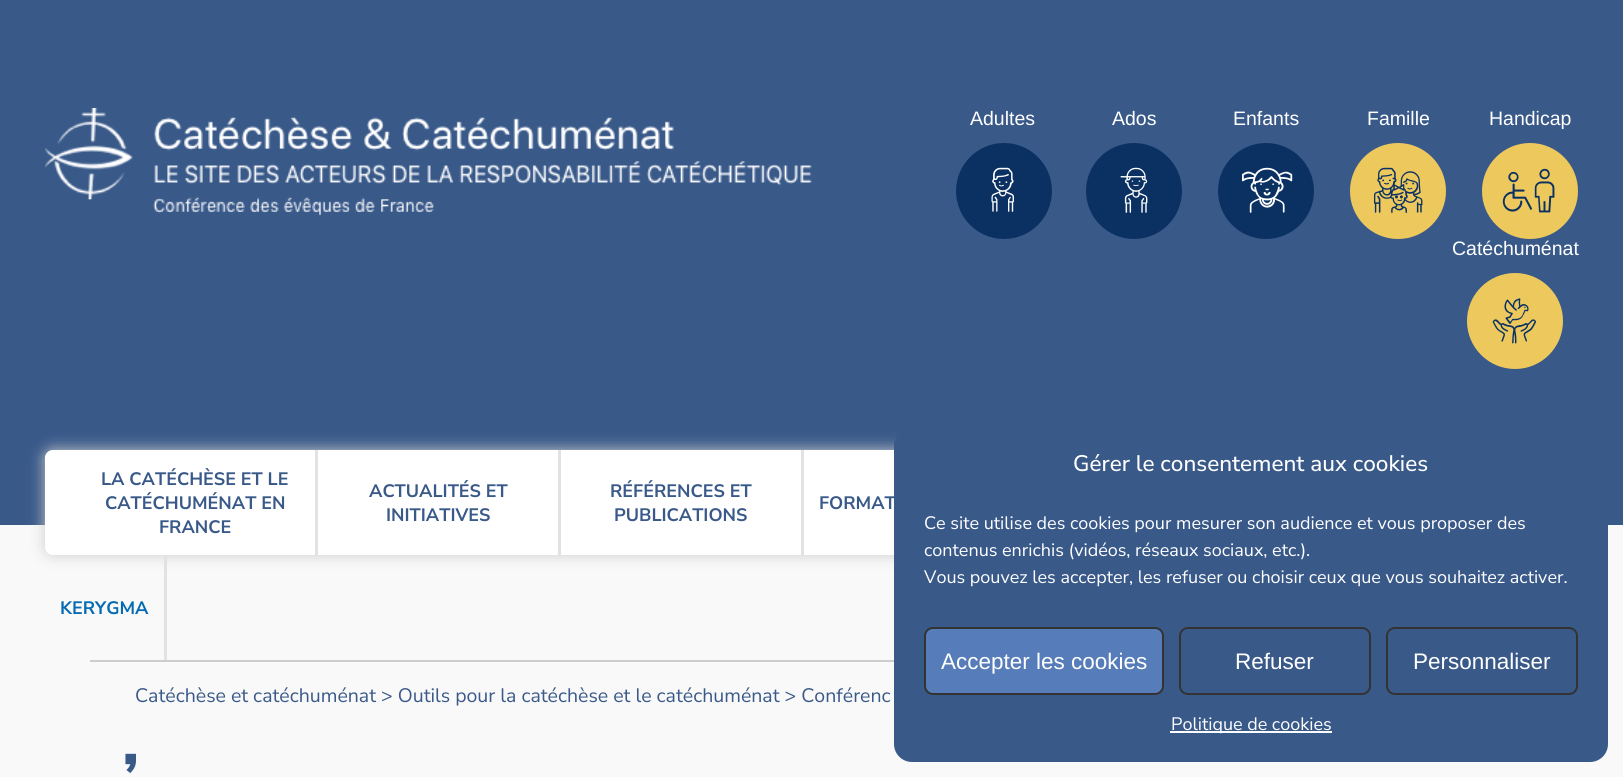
#include <cairo.h>
#include <math.h>
#include <stddef.h>

typedef struct { double x, y; const char *s; } line_t;

static void ink(cairo_t *ctx, unsigned color) {
    cairo_set_source_rgb(ctx, (color >> 16) / 255.0, (color >> 8 & 255) / 255.0, (color & 255) / 255.0);
}

static void round_path(cairo_t *ctx, double x, double y, double w, double h, double r) {
    cairo_new_sub_path(ctx);
    cairo_arc(ctx, x + w - r, y + h - r, r, 0, M_PI / 2);
    cairo_arc(ctx, x + r, y + h - r, r, M_PI / 2, M_PI);
    cairo_arc(ctx, x + r, y + r, r, M_PI, 1.5 * M_PI);
    cairo_arc(ctx, x + w - r, y + r, r, 1.5 * M_PI, 2 * M_PI);
    cairo_close_path(ctx);
}

static void blur_box(cairo_t *ctx, double x, double y, double w, double h, double r, double blur, double alpha) {
    cairo_push_group_with_content(ctx, CAIRO_CONTENT_ALPHA);
    cairo_set_operator(ctx, CAIRO_OPERATOR_SOURCE);
    for (int i = 15; i >= -15 && fmin(w, h) + blur * i / 3 > 0; i -= 2) {
        double e = blur * i / 6;
        cairo_set_source_rgba(ctx, 0, 0, 0, alpha * erfc((i - 1) / 8.5) / 2);
        round_path(ctx, x - e, y - e, w + 2 * e, h + 2 * e, fmax(0, fmin(r + e + blur * .6, fmin(w, h) / 2 + e)));
        cairo_fill(ctx);
    }
    cairo_pattern_t *soft = cairo_pop_group(ctx);
    cairo_mask(ctx, soft);
    cairo_pattern_destroy(soft);
}

static void paste(cairo_t *ctx, const char *path, double x, double y, double w, double h) {
    cairo_surface_t *image = cairo_image_surface_create_from_png(path);
    cairo_save(ctx);
    cairo_set_source_surface(ctx, image, x, y);
    cairo_rectangle(ctx, x, y, w, h);
    cairo_fill(ctx);
    cairo_restore(ctx);
    cairo_surface_destroy(image);
}

int main(void) {
    cairo_surface_t *surface = cairo_image_surface_create(CAIRO_FORMAT_RGB24, 1623, 777);
    cairo_t *ctx = cairo_create(surface);
    cairo_font_options_t *options = cairo_font_options_create();
    cairo_font_options_set_hint_metrics(options, CAIRO_HINT_METRICS_OFF);
    cairo_font_options_set_hint_style(options, CAIRO_HINT_STYLE_NONE);
    cairo_set_font_options(ctx, options);
    cairo_set_miter_limit(ctx, 4);
    ink(ctx, 0xF9F9F9);
    cairo_paint(ctx);
    ink(ctx, 0x395989);
    cairo_rectangle(ctx, 0, 0, 1623, 525);
    cairo_fill(ctx);
    paste(ctx, "media/1.png", 45, 108, 767, 108);
    cairo_select_font_face(ctx, "Liberation Sans", CAIRO_FONT_SLANT_NORMAL, CAIRO_FONT_WEIGHT_NORMAL);
    cairo_set_font_size(ctx, 19.5);
    ink(ctx, 0xFFFFFF);
    cairo_move_to(ctx, 970, 125);
    cairo_show_text(ctx, "Adultes");
    ink(ctx, 0x0B3163);
    cairo_new_path(ctx);
    cairo_arc(ctx, 1004, 191, 48, 0, 2 * M_PI);
    cairo_fill(ctx);
    paste(ctx, "media/2.png", 991, 167, 23, 45);
    ink(ctx, 0xFFFFFF);
    cairo_move_to(ctx, 1112, 125);
    cairo_show_text(ctx, "Ados");
    ink(ctx, 0x0B3163);
    cairo_new_path(ctx);
    cairo_arc(ctx, 1134, 191, 48, 0, 2 * M_PI);
    cairo_fill(ctx);
    paste(ctx, "media/3.png", 1120, 167, 28, 46);
    ink(ctx, 0xFFFFFF);
    cairo_move_to(ctx, 1233, 125);
    cairo_show_text(ctx, "Enfants");
    ink(ctx, 0x0B3163);
    cairo_new_path(ctx);
    cairo_arc(ctx, 1266, 191, 48, 0, 2 * M_PI);
    cairo_fill(ctx);
    paste(ctx, "media/4.png", 1242, 167, 51, 46);
    ink(ctx, 0xFFFFFF);
    cairo_move_to(ctx, 1367, 125);
    cairo_show_text(ctx, "Famille");
    ink(ctx, 0xEDC95D);
    cairo_new_path(ctx);
    cairo_arc(ctx, 1398, 191, 48, 0, 2 * M_PI);
    cairo_fill(ctx);
    paste(ctx, "media/5.png", 1374, 167, 49, 46);
    ink(ctx, 0xFFFFFF);
    cairo_move_to(ctx, 1489, 125);
    cairo_show_text(ctx, "Handicap");
    ink(ctx, 0xEDC95D);
    cairo_new_path(ctx);
    cairo_arc(ctx, 1530, 191, 48, 0, 2 * M_PI);
    cairo_fill(ctx);
    paste(ctx, "media/6.png", 1502, 168, 53, 45);
    ink(ctx, 0xFFFFFF);
    cairo_move_to(ctx, 1452, 255);
    cairo_show_text(ctx, "Catéchuménat");
    ink(ctx, 0xEDC95D);
    cairo_new_path(ctx);
    cairo_arc(ctx, 1515, 321, 48, 0, 2 * M_PI);
    cairo_fill(ctx);
    paste(ctx, "media/7.png", 1492, 298, 45, 46);
    ink(ctx, 0xF9F9F9);
    round_path(ctx, 45, 450, 1533, 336, 9);
    cairo_fill(ctx);
    ink(ctx, 0xCDCDCD);
    blur_box(ctx, 45, 450, 1533, 105, 8, 7.5, 1);
    ink(ctx, 0xFFFFFF);
    round_path(ctx, 45, 450, 1533, 105, 8);
    cairo_fill(ctx);
    ink(ctx, 0xE2E2E2);
    cairo_rectangle(ctx, 315, 450, 3, 105);
    cairo_fill(ctx);
    cairo_select_font_face(ctx, "Nunito Sans", CAIRO_FONT_SLANT_NORMAL, CAIRO_FONT_WEIGHT_BOLD);
    cairo_set_font_size(ctx, 18);
    ink(ctx, 0x395989);
    {
        static const line_t items[] = {
            {101, 485, "LA CATÉCHÈSE ET LE"},
            {105, 509, "CATÉCHUMÉNAT EN"},
            {159, 533, "FRANCE"},
        };
        for (size_t i = 0; i < sizeof items / sizeof *items; i++) {
            cairo_move_to(ctx, items[i].x, items[i].y);
            cairo_show_text(ctx, items[i].s);
        }
    }
    ink(ctx, 0xE2E2E2);
    cairo_rectangle(ctx, 558, 450, 3, 105);
    cairo_fill(ctx);
    ink(ctx, 0x395989);
    cairo_move_to(ctx, 369, 497);
    cairo_show_text(ctx, "ACTUALITÉS ET");
    cairo_move_to(ctx, 386, 521);
    cairo_show_text(ctx, "INITIATIVES");
    ink(ctx, 0xE2E2E2);
    cairo_rectangle(ctx, 801, 450, 3, 105);
    cairo_fill(ctx);
    ink(ctx, 0x395989);
    {
        static const line_t items[] = {
            {610, 497, "RÉFÉRENCES ET"},
            {614, 521, "PUBLICATIONS"},
            {819, 509, "FORMAT"},
        };
        for (size_t i = 0; i < sizeof items / sizeof *items; i++) {
            cairo_move_to(ctx, items[i].x, items[i].y);
            cairo_show_text(ctx, items[i].s);
        }
    }
    ink(ctx, 0xE2E2E2);
    cairo_rectangle(ctx, 164, 555, 3, 105);
    cairo_fill(ctx);
    ink(ctx, 0x066BB2);
    cairo_move_to(ctx, 60, 614);
    cairo_show_text(ctx, "KERYGMA");
    ink(ctx, 0xCDCDCD);
    cairo_rectangle(ctx, 90, 660, 804, 2);
    cairo_fill(ctx);
    cairo_select_font_face(ctx, "Nunito Sans", CAIRO_FONT_SLANT_NORMAL, CAIRO_FONT_WEIGHT_NORMAL);
    cairo_set_font_size(ctx, 19.5);
    ink(ctx, 0x395989);
    cairo_move_to(ctx, 135, 702);
    cairo_show_text(ctx, "Catéchèse et catéchuménat > Outils pour la catéchèse et le catéchuménat > Conférenc");
    cairo_select_font_face(ctx, "Nunito Sans Black", CAIRO_FONT_SLANT_NORMAL, CAIRO_FONT_WEIGHT_NORMAL);
    cairo_set_font_size(ctx, 57);
    cairo_move_to(ctx, 123, 794);
    cairo_show_text(ctx, "’");
    round_path(ctx, 894, 428, 714, 334, 18);
    cairo_fill(ctx);
    cairo_select_font_face(ctx, "Nunito Sans Medium", CAIRO_FONT_SLANT_NORMAL, CAIRO_FONT_WEIGHT_NORMAL);
    cairo_set_font_size(ctx, 22.5);
    ink(ctx, 0xFFFFFF);
    cairo_move_to(ctx, 1073, 471);
    cairo_show_text(ctx, "Gérer le consentement aux cookies");
    cairo_select_font_face(ctx, "Nunito Sans", CAIRO_FONT_SLANT_NORMAL, CAIRO_FONT_WEIGHT_NORMAL);
    cairo_set_font_size(ctx, 18);
    {
        static const line_t items[] = {
            {924, 529, "Ce site utilise des cookies pour mesurer son audience et vous proposer des"},
            {924, 556, "contenus enrichis (vidéos, réseaux sociaux, etc.)."},
            {924, 583, "Vous pouvez les accepter, les refuser ou choisir ceux que vous souhaitez activer."},
        };
        for (size_t i = 0; i < sizeof items / sizeof *items; i++) {
            cairo_move_to(ctx, items[i].x, items[i].y);
            cairo_show_text(ctx, items[i].s);
        }
    }
    ink(ctx, 0x567DB9);
    round_path(ctx, 925, 628, 238, 66, 8);
    cairo_fill_preserve(ctx);
    ink(ctx, 0x333333);
    cairo_stroke(ctx);
    cairo_select_font_face(ctx, "Liberation Sans", CAIRO_FONT_SLANT_NORMAL, CAIRO_FONT_WEIGHT_NORMAL);
    cairo_set_font_size(ctx, 22.5);
    ink(ctx, 0xFFFFFF);
    cairo_move_to(ctx, 941, 669);
    cairo_show_text(ctx, "Accepter les cookies");
    round_path(ctx, 1180, 628, 190, 66, 8);
    ink(ctx, 0x333333);
    cairo_stroke(ctx);
    ink(ctx, 0xFFFFFF);
    cairo_move_to(ctx, 1235, 669);
    cairo_show_text(ctx, "Refuser");
    round_path(ctx, 1387, 628, 190, 66, 8);
    ink(ctx, 0x333333);
    cairo_stroke(ctx);
    ink(ctx, 0xFFFFFF);
    cairo_move_to(ctx, 1413, 669);
    cairo_show_text(ctx, "Personnaliser");
    cairo_rectangle(ctx, 1170, 731, 162, 2);
    cairo_fill(ctx);
    cairo_select_font_face(ctx, "Nunito Sans", CAIRO_FONT_SLANT_NORMAL, CAIRO_FONT_WEIGHT_NORMAL);
    cairo_set_font_size(ctx, 18);
    cairo_move_to(ctx, 1171, 730);
    cairo_show_text(ctx, "Politique de cookies");
    cairo_surface_write_to_png(surface, "image.png");
    cairo_font_options_destroy(options);
    cairo_destroy(ctx);
    cairo_surface_destroy(surface);
    return 0;
}
